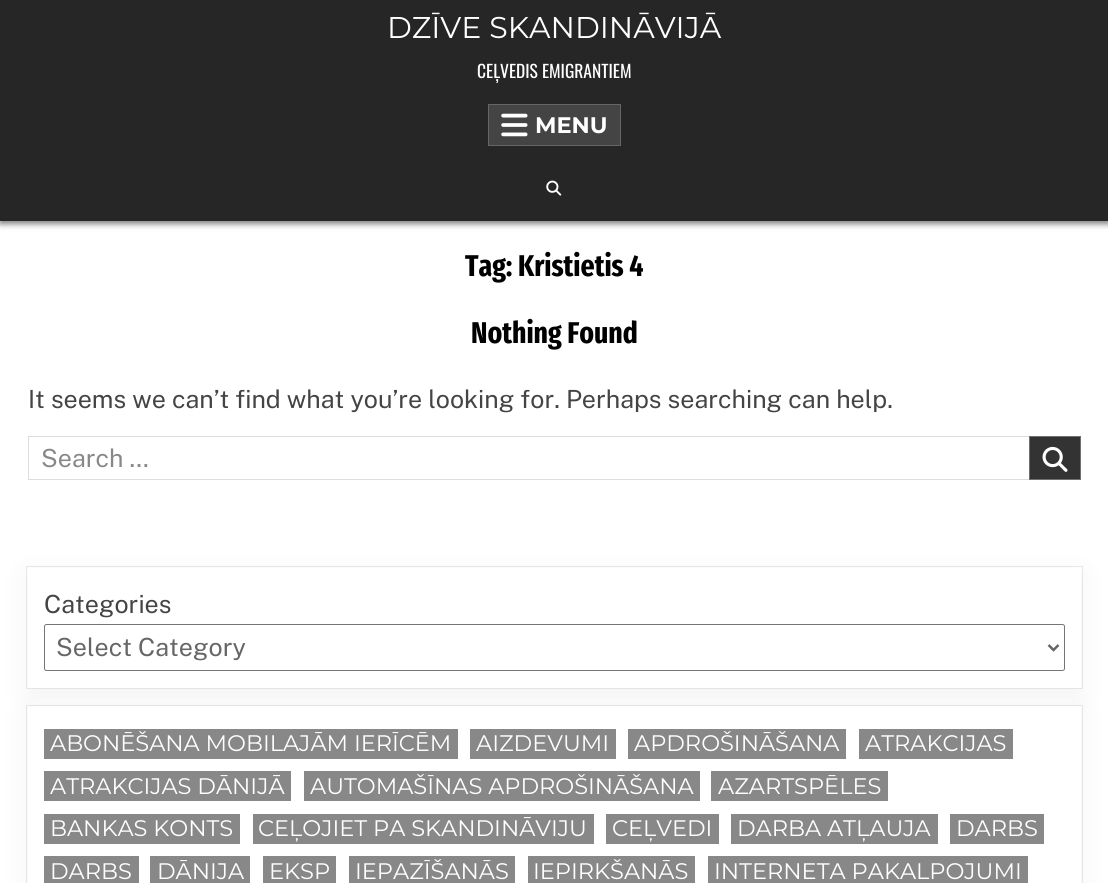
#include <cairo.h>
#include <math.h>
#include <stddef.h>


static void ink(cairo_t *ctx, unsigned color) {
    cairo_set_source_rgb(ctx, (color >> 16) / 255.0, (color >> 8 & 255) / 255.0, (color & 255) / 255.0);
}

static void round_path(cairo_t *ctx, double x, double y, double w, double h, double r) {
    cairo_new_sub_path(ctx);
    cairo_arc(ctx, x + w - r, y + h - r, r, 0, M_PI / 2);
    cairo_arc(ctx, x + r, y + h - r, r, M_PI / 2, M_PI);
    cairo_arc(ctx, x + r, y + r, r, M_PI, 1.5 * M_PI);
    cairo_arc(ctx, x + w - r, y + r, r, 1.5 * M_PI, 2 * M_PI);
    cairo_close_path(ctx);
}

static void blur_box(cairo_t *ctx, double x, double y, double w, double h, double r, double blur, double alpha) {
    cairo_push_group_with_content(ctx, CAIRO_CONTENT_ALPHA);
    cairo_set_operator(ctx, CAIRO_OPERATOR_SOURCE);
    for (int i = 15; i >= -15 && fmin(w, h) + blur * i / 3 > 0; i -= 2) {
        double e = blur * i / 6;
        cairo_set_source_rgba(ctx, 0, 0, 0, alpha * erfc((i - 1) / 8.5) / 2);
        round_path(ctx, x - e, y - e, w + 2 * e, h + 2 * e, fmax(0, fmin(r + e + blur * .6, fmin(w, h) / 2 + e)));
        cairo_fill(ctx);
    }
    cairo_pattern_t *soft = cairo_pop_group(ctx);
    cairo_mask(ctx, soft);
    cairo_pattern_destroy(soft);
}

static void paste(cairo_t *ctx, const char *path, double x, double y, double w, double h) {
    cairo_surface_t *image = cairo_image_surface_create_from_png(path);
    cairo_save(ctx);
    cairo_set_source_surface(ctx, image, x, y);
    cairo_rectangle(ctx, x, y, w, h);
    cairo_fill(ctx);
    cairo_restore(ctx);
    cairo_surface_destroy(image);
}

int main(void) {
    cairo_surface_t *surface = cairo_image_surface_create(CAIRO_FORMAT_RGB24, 1108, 883);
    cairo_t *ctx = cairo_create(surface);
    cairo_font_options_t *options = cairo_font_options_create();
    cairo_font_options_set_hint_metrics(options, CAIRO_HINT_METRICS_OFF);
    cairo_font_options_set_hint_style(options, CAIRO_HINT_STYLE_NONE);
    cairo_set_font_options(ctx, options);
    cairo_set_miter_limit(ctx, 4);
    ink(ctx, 0xFFFFFF);
    cairo_paint(ctx);
    ink(ctx, 0x000000);
    blur_box(ctx, 0, 3, 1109, 221, 0, 3, 0.5);
    ink(ctx, 0x262626);
    cairo_rectangle(ctx, 0, 0, 1108, 221);
    cairo_fill(ctx);
    cairo_select_font_face(ctx, "Montserrat", CAIRO_FONT_SLANT_NORMAL, CAIRO_FONT_WEIGHT_NORMAL);
    cairo_set_font_size(ctx, 30);
    ink(ctx, 0xFFFFFF);
    cairo_move_to(ctx, 387, 38);
    cairo_show_text(ctx, "DZĪVE SKANDINĀVIJĀ");
    cairo_select_font_face(ctx, "Oswald", CAIRO_FONT_SLANT_NORMAL, CAIRO_FONT_WEIGHT_NORMAL);
    cairo_set_font_size(ctx, 17.5);
    cairo_move_to(ctx, 477, 78);
    cairo_show_text(ctx, "CEĻVEDIS EMIGRANTIEM");
    ink(ctx, 0x444444);
    cairo_rectangle(ctx, 488.5, 104.5, 132, 41);
    cairo_fill_preserve(ctx);
    ink(ctx, 0x666666);
    cairo_set_line_width(ctx, 1);
    cairo_stroke(ctx);
    paste(ctx, "media/1.png", 501, 113, 27, 24);
    cairo_select_font_face(ctx, "Montserrat", CAIRO_FONT_SLANT_NORMAL, CAIRO_FONT_WEIGHT_BOLD);
    cairo_set_font_size(ctx, 22.5);
    ink(ctx, 0xFFFFFF);
    cairo_move_to(ctx, 535, 133);
    cairo_show_text(ctx, "MENU");
    paste(ctx, "media/2.png", 546, 180, 16, 16);
    cairo_select_font_face(ctx, "Fira Sans Extra Condensed", CAIRO_FONT_SLANT_NORMAL, CAIRO_FONT_WEIGHT_BOLD);
    cairo_set_font_size(ctx, 30);
    ink(ctx, 0x000000);
    cairo_move_to(ctx, 465, 276);
    cairo_show_text(ctx, "Tag: Kristietis 4");
    cairo_move_to(ctx, 471, 343);
    cairo_show_text(ctx, "Nothing Found");
    cairo_select_font_face(ctx, "Public Sans", CAIRO_FONT_SLANT_NORMAL, CAIRO_FONT_WEIGHT_NORMAL);
    cairo_set_font_size(ctx, 25);
    ink(ctx, 0x444444);
    cairo_move_to(ctx, 28, 408);
    cairo_show_text(ctx, "It seems we can’t find what you’re looking for. Perhaps searching can help.");
    cairo_rectangle(ctx, 28.5, 436.5, 1052, 43);
    ink(ctx, 0xDDDDDD);
    cairo_stroke(ctx);
    ink(ctx, 0x888888);
    cairo_move_to(ctx, 41, 467);
    cairo_show_text(ctx, "Search …");
    ink(ctx, 0x333333);
    cairo_rectangle(ctx, 1029.5, 436.5, 51, 43);
    cairo_fill_preserve(ctx);
    ink(ctx, 0x6F6F6F);
    cairo_stroke(ctx);
    paste(ctx, "media/3.png", 1042, 446, 26, 26);
    cairo_rectangle(ctx, 26.5, 566.5, 1056, 122);
    ink(ctx, 0xEBEBEB);
    cairo_stroke(ctx);
    ink(ctx, 0x000000);
    blur_box(ctx, 28, 575, 1053, 120, 0, 15, 0.05);
    ink(ctx, 0xFFFFFF);
    cairo_rectangle(ctx, 28, 568, 1053, 120);
    cairo_fill(ctx);
    ink(ctx, 0x444444);
    cairo_move_to(ctx, 44, 613);
    cairo_show_text(ctx, "Categories");
    round_path(ctx, 44.5, 624.5, 1020, 46, 2);
    ink(ctx, 0x767676);
    cairo_stroke(ctx);
    cairo_new_path(ctx);
    cairo_move_to(ctx, 1048.5, 645);
    cairo_line_to(ctx, 1053.5, 650);
    cairo_line_to(ctx, 1058.5, 645);
    ink(ctx, 0x666666);
    cairo_set_line_width(ctx, 2.5);
    cairo_stroke(ctx);
    cairo_move_to(ctx, 56, 656);
    cairo_show_text(ctx, "Select Category");
    cairo_rectangle(ctx, 26.5, 705.5, 1056, 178);
    cairo_set_source_rgba(ctx, 0, 0, 0, 0.08);
    cairo_set_line_width(ctx, 1);
    cairo_stroke(ctx);
    ink(ctx, 0x000000);
    blur_box(ctx, 28, 714, 1053, 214, 0, 15, 0.05);
    ink(ctx, 0xFFFFFF);
    cairo_rectangle(ctx, 28, 706, 1053, 177);
    cairo_fill(ctx);
    ink(ctx, 0x888888);
    cairo_rectangle(ctx, 44, 729, 414, 30);
    cairo_fill(ctx);
    cairo_select_font_face(ctx, "Montserrat", CAIRO_FONT_SLANT_NORMAL, CAIRO_FONT_WEIGHT_NORMAL);
    cairo_set_font_size(ctx, 22.5);
    ink(ctx, 0xFFFFFF);
    cairo_move_to(ctx, 50, 751);
    cairo_show_text(ctx, "ABONĒŠANA MOBILAJĀM IERĪCĒM");
    ink(ctx, 0x888888);
    cairo_rectangle(ctx, 470, 729, 146, 30);
    cairo_fill(ctx);
    ink(ctx, 0xFFFFFF);
    cairo_move_to(ctx, 476, 751);
    cairo_show_text(ctx, "AIZDEVUMI");
    ink(ctx, 0x888888);
    cairo_rectangle(ctx, 628, 729, 218, 30);
    cairo_fill(ctx);
    ink(ctx, 0xFFFFFF);
    cairo_move_to(ctx, 634, 751);
    cairo_show_text(ctx, "APDROŠINĀŠANA");
    ink(ctx, 0x888888);
    cairo_rectangle(ctx, 859, 729, 154, 30);
    cairo_fill(ctx);
    ink(ctx, 0xFFFFFF);
    cairo_move_to(ctx, 865, 751);
    cairo_show_text(ctx, "ATRAKCIJAS");
    ink(ctx, 0x888888);
    cairo_rectangle(ctx, 44, 771, 247, 30);
    cairo_fill(ctx);
    ink(ctx, 0xFFFFFF);
    cairo_move_to(ctx, 50, 794);
    cairo_show_text(ctx, "ATRAKCIJAS DĀNIJĀ");
    ink(ctx, 0x888888);
    cairo_rectangle(ctx, 304, 771, 396, 30);
    cairo_fill(ctx);
    ink(ctx, 0xFFFFFF);
    cairo_move_to(ctx, 310, 794);
    cairo_show_text(ctx, "AUTOMAŠĪNAS APDROŠINĀŠANA");
    ink(ctx, 0x888888);
    cairo_rectangle(ctx, 711, 771, 177, 30);
    cairo_fill(ctx);
    ink(ctx, 0xFFFFFF);
    cairo_move_to(ctx, 718, 794);
    cairo_show_text(ctx, "AZARTSPĒLES");
    ink(ctx, 0x888888);
    cairo_rectangle(ctx, 44, 814, 196, 30);
    cairo_fill(ctx);
    ink(ctx, 0xFFFFFF);
    cairo_move_to(ctx, 50, 836);
    cairo_show_text(ctx, "BANKAS KONTS");
    ink(ctx, 0x888888);
    cairo_rectangle(ctx, 253, 814, 341, 30);
    cairo_fill(ctx);
    ink(ctx, 0xFFFFFF);
    cairo_move_to(ctx, 258, 836);
    cairo_show_text(ctx, "CEĻOJIET PA SKANDINĀVIJU");
    ink(ctx, 0x888888);
    cairo_rectangle(ctx, 606, 814, 113, 30);
    cairo_fill(ctx);
    ink(ctx, 0xFFFFFF);
    cairo_move_to(ctx, 612, 836);
    cairo_show_text(ctx, "CEĻVEDI");
    ink(ctx, 0x888888);
    cairo_rectangle(ctx, 731, 814, 207, 30);
    cairo_fill(ctx);
    ink(ctx, 0xFFFFFF);
    cairo_move_to(ctx, 737, 836);
    cairo_show_text(ctx, "DARBA ATĻAUJA");
    ink(ctx, 0x888888);
    cairo_rectangle(ctx, 950, 814, 94, 30);
    cairo_fill(ctx);
    ink(ctx, 0xFFFFFF);
    cairo_move_to(ctx, 956, 836);
    cairo_show_text(ctx, "DARBS");
    ink(ctx, 0x888888);
    cairo_rectangle(ctx, 44, 856, 95, 27);
    cairo_fill(ctx);
    ink(ctx, 0xFFFFFF);
    cairo_move_to(ctx, 50, 879);
    cairo_show_text(ctx, "DARBS");
    ink(ctx, 0x888888);
    cairo_rectangle(ctx, 150, 856, 100, 27);
    cairo_fill(ctx);
    ink(ctx, 0xFFFFFF);
    cairo_move_to(ctx, 157, 879);
    cairo_show_text(ctx, "DĀNIJA");
    ink(ctx, 0x888888);
    cairo_rectangle(ctx, 263, 856, 73, 27);
    cairo_fill(ctx);
    ink(ctx, 0xFFFFFF);
    cairo_move_to(ctx, 269, 879);
    cairo_show_text(ctx, "EKSP");
    ink(ctx, 0x888888);
    cairo_rectangle(ctx, 349, 856, 166, 27);
    cairo_fill(ctx);
    ink(ctx, 0xFFFFFF);
    cairo_move_to(ctx, 355, 879);
    cairo_show_text(ctx, "IEPAZĪŠANĀS");
    ink(ctx, 0x888888);
    cairo_rectangle(ctx, 528, 856, 167, 27);
    cairo_fill(ctx);
    ink(ctx, 0xFFFFFF);
    cairo_move_to(ctx, 533, 879);
    cairo_show_text(ctx, "IEPIRKŠANĀS");
    ink(ctx, 0x888888);
    cairo_rectangle(ctx, 708, 856, 320, 27);
    cairo_fill(ctx);
    ink(ctx, 0xFFFFFF);
    cairo_move_to(ctx, 714, 879);
    cairo_show_text(ctx, "INTERNETA PAKALPOJUMI");
    cairo_surface_write_to_png(surface, "image.png");
    cairo_font_options_destroy(options);
    cairo_destroy(ctx);
    cairo_surface_destroy(surface);
    return 0;
}
